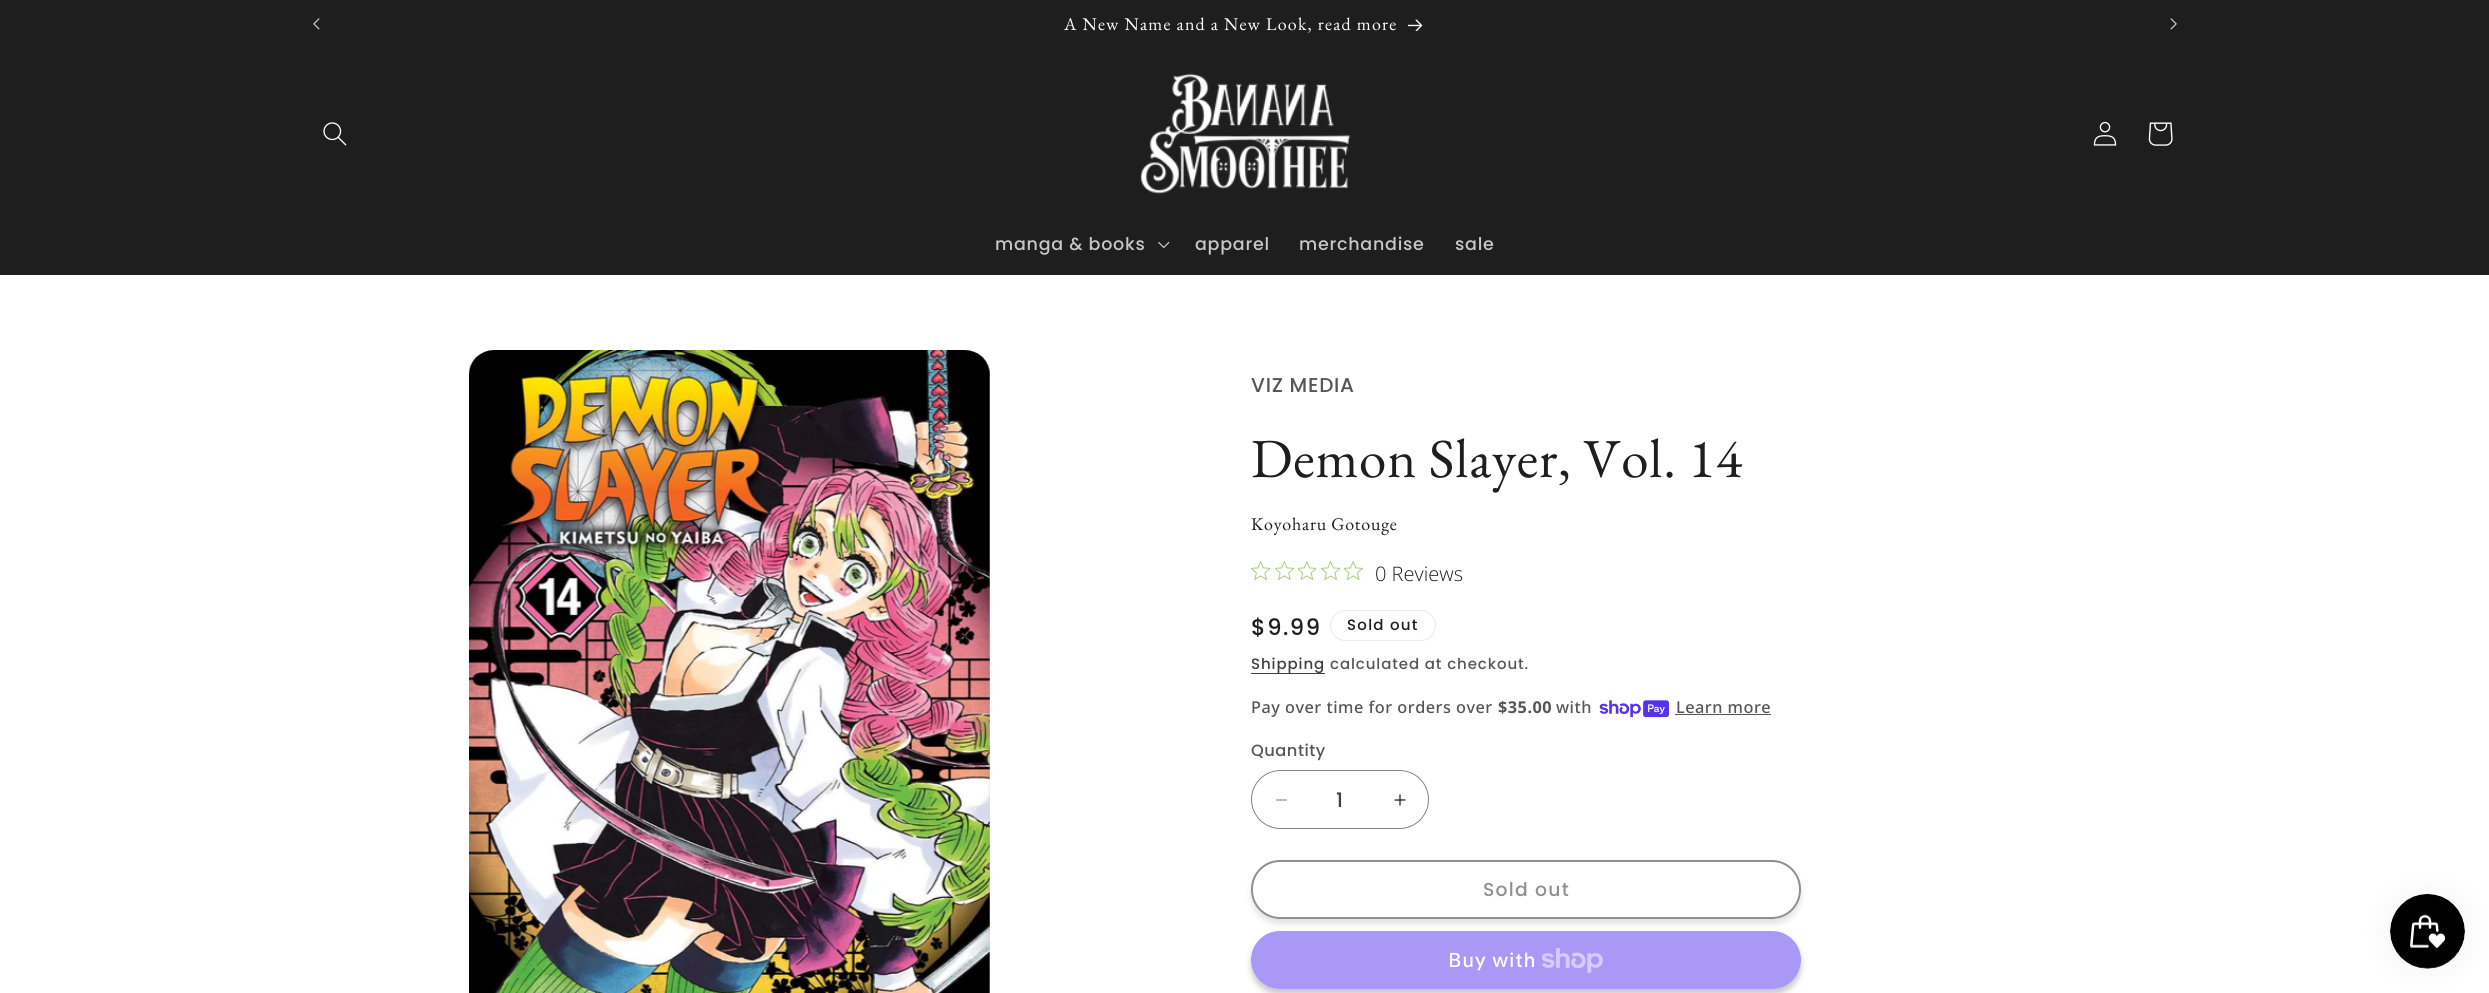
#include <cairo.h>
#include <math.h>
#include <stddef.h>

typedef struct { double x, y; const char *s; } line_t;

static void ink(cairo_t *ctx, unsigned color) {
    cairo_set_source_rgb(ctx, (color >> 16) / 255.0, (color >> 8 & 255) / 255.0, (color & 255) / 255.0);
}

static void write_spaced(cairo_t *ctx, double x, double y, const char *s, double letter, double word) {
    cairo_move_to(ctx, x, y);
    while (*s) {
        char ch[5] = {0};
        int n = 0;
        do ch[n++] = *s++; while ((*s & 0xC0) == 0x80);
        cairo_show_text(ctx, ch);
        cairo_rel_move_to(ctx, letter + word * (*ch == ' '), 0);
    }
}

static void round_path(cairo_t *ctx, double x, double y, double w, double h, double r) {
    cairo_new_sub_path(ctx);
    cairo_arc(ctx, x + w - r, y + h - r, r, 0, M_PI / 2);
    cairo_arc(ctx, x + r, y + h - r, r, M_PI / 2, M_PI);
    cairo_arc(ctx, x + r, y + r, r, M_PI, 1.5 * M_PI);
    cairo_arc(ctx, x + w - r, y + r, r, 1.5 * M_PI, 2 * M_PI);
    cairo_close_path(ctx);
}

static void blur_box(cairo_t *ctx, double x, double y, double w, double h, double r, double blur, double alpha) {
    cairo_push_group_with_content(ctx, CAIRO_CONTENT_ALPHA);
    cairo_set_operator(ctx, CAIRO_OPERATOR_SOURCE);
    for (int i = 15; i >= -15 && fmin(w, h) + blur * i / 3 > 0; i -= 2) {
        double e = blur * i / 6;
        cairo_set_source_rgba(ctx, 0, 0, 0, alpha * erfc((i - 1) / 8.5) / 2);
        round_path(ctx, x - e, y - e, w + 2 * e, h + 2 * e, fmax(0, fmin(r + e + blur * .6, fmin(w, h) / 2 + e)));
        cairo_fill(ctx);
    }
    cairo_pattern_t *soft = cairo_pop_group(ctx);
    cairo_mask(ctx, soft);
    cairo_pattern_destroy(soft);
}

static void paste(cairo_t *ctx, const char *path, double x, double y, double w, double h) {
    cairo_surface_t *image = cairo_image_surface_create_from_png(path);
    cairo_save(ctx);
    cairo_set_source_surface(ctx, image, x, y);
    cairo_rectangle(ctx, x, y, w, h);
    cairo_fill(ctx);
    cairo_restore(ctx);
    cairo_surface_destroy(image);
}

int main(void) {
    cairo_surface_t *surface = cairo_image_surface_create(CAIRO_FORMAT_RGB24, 2489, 993);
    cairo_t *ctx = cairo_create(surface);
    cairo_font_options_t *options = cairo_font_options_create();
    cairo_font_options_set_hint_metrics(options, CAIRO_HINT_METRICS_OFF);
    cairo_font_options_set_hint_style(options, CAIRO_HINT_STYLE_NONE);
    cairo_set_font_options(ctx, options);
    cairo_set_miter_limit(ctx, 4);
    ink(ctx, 0xFFFFFF);
    cairo_paint(ctx);
    ink(ctx, 0x1E1E1E);
    cairo_rectangle(ctx, 0, 0, 2489, 275);
    cairo_fill(ctx);
    paste(ctx, "media/1.png", 313, 18, 7, 12);
    cairo_select_font_face(ctx, "EB Garamond", CAIRO_FONT_SLANT_NORMAL, CAIRO_FONT_WEIGHT_NORMAL);
    cairo_set_font_size(ctx, 17.9);
    ink(ctx, 0xFFFFFF);
    write_spaced(ctx, 1064, 30, "A New Name and a New Look, read more", 1.25, 0);
    paste(ctx, "media/2.png", 1408, 19, 15, 12);
    paste(ctx, "media/3.png", 2170, 18, 7, 12);
    paste(ctx, "media/4.png", 323, 122, 24, 24);
    paste(ctx, "media/5.png", 1140, 73, 211, 121);
    paste(ctx, "media/6.png", 2093, 121, 24, 25);
    paste(ctx, "media/7.png", 2148, 122, 25, 24);
    cairo_select_font_face(ctx, "Poppins Medium", CAIRO_FONT_SLANT_NORMAL, CAIRO_FONT_WEIGHT_NORMAL);
    cairo_set_font_size(ctx, 17.5);
    ink(ctx, 0xC7C7C7);
    write_spaced(ctx, 995, 250, "manga & books", 0.75, 0);
    paste(ctx, "media/8.png", 1158, 241, 12, 8);
    {
        static const line_t items[] = {
            {1195, 250, "apparel"},
            {1299, 250, "merchandise"},
            {1455, 250, "sale"},
        };
        for (size_t i = 0; i < sizeof items / sizeof *items; i++) {
            write_spaced(ctx, items[i].x, items[i].y, items[i].s, 0.75, 0);
        }
    }
    paste(ctx, "media/9.png", 469, 350, 521, 643);
    cairo_set_font_size(ctx, 20);
    ink(ctx, 0x565656);
    write_spaced(ctx, 1251, 392, "VIZ MEDIA", 0.75, 0);
    cairo_select_font_face(ctx, "EB Garamond", CAIRO_FONT_SLANT_NORMAL, CAIRO_FONT_WEIGHT_NORMAL);
    cairo_set_font_size(ctx, 55);
    ink(ctx, 0x1E1E1E);
    write_spaced(ctx, 1251, 477, "Demon Slayer, Vol. 14", 0.8, 0);
    cairo_set_font_size(ctx, 17.9);
    write_spaced(ctx, 1251, 530, "Koyoharu Gotouge", 0.8, 0);
    paste(ctx, "media/10.png", 1251, 561, 19, 19);
    paste(ctx, "media/11.png", 1275, 561, 19, 19);
    paste(ctx, "media/12.png", 1298, 561, 18, 19);
    paste(ctx, "media/10.png", 1321, 561, 19, 19);
    paste(ctx, "media/13.png", 1344, 561, 19, 19);
    cairo_select_font_face(ctx, "Open Sans Light", CAIRO_FONT_SLANT_NORMAL, CAIRO_FONT_WEIGHT_NORMAL);
    cairo_set_font_size(ctx, 20);
    cairo_move_to(ctx, 1375, 581);
    cairo_show_text(ctx, "0 Reviews");
    cairo_select_font_face(ctx, "Poppins Medium", CAIRO_FONT_SLANT_NORMAL, CAIRO_FONT_WEIGHT_NORMAL);
    cairo_set_font_size(ctx, 22.5);
    write_spaced(ctx, 1251, 635, "$9.99", 1.5, 0);
    round_path(ctx, 1330.5, 610.5, 105, 30, 15);
    ink(ctx, 0xE9E9E9);
    cairo_set_line_width(ctx, 1);
    cairo_stroke(ctx);
    cairo_set_font_size(ctx, 15);
    ink(ctx, 0x1E1E1E);
    write_spaced(ctx, 1347, 630, "Sold out", 1.25, 0);
    ink(ctx, 0x404040);
    cairo_rectangle(ctx, 1251, 673, 74, 1);
    cairo_fill(ctx);
    write_spaced(ctx, 1251, 669, "Shipping", 0.9, 0);
    ink(ctx, 0x565656);
    write_spaced(ctx, 1330, 669, "calculated at checkout.", 0.9, 0);
    cairo_select_font_face(ctx, "Noto Sans Medium", CAIRO_FONT_SLANT_NORMAL, CAIRO_FONT_WEIGHT_NORMAL);
    cairo_set_font_size(ctx, 16.25);
    write_spaced(ctx, 1251, 713, "Pay over time for orders over", 0.5, 0);
    cairo_select_font_face(ctx, "Noto Sans", CAIRO_FONT_SLANT_NORMAL, CAIRO_FONT_WEIGHT_BOLD);
    write_spaced(ctx, 1498, 713, "$35.00", 0.5, 0);
    cairo_select_font_face(ctx, "Noto Sans Medium", CAIRO_FONT_SLANT_NORMAL, CAIRO_FONT_WEIGHT_NORMAL);
    write_spaced(ctx, 1556, 713, "with", 0.5, 0);
    paste(ctx, "media/14.png", 1599, 700, 70, 18);
    write_spaced(ctx, 1676, 713, "Learn more", 0.5, 0);
    cairo_rectangle(ctx, 1675, 714, 96, 1);
    cairo_fill(ctx);
    cairo_select_font_face(ctx, "Poppins Medium", CAIRO_FONT_SLANT_NORMAL, CAIRO_FONT_WEIGHT_NORMAL);
    write_spaced(ctx, 1251, 756, "Quantity", 0.5, 0);
    paste(ctx, "media/15.png", 1275, 799, 12, 2);
    paste(ctx, "media/16.png", 1394, 794, 12, 12);
    round_path(ctx, 1251.5, 770.5, 177, 58, 29);
    ink(ctx, 0x838383);
    cairo_stroke(ctx);
    cairo_set_font_size(ctx, 20);
    ink(ctx, 0x404040);
    cairo_move_to(ctx, 1336, 807);
    cairo_show_text(ctx, "1");
    cairo_save(ctx);
    cairo_set_fill_rule(ctx, CAIRO_FILL_RULE_EVEN_ODD);
    cairo_new_path(ctx);
    cairo_move_to(ctx, 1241, 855);
    cairo_line_to(ctx, 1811, 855);
    cairo_line_to(ctx, 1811, 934);
    cairo_line_to(ctx, 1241, 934);
    cairo_close_path(ctx);
    cairo_move_to(ctx, 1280, 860);
    cairo_line_to(ctx, 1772, 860);
    cairo_curve_to(ctx, 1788, 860, 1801, 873, 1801, 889);
    cairo_line_to(ctx, 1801, 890);
    cairo_curve_to(ctx, 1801, 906, 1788, 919, 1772, 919);
    cairo_line_to(ctx, 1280, 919);
    cairo_curve_to(ctx, 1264, 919, 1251, 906, 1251, 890);
    cairo_line_to(ctx, 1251, 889);
    cairo_curve_to(ctx, 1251, 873, 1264, 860, 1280, 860);
    cairo_close_path(ctx);
    cairo_clip(ctx);
    ink(ctx, 0x8E8E8E);
    blur_box(ctx, 1251, 865, 550, 59, 29, 3, 0.25);
    cairo_restore(ctx);
    round_path(ctx, 1251.5, 860.5, 549, 58, 28.5);
    ink(ctx, 0xFFFFFF);
    cairo_stroke(ctx);
    round_path(ctx, 1252, 861, 548, 57, 28);
    ink(ctx, 0x8F8F8F);
    cairo_set_line_width(ctx, 2);
    cairo_stroke(ctx);
    cairo_set_font_size(ctx, 18.75);
    write_spaced(ctx, 1483, 896, "Sold out", 1.25, 0);
    cairo_save(ctx);
    cairo_set_fill_rule(ctx, CAIRO_FILL_RULE_EVEN_ODD);
    cairo_new_path(ctx);
    cairo_move_to(ctx, 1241, 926);
    cairo_line_to(ctx, 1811, 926);
    cairo_line_to(ctx, 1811, 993);
    cairo_line_to(ctx, 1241, 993);
    cairo_close_path(ctx);
    cairo_move_to(ctx, 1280, 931);
    cairo_line_to(ctx, 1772, 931);
    cairo_curve_to(ctx, 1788, 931, 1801, 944, 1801, 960);
    cairo_curve_to(ctx, 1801, 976, 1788, 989, 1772, 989);
    cairo_line_to(ctx, 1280, 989);
    cairo_curve_to(ctx, 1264, 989, 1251, 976, 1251, 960);
    cairo_curve_to(ctx, 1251, 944, 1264, 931, 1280, 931);
    cairo_close_path(ctx);
    cairo_clip(ctx);
    ink(ctx, 0x1E1E1E);
    blur_box(ctx, 1251, 936, 550, 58, 29, 3, 0.25);
    cairo_restore(ctx);
    cairo_set_source_rgba(ctx, 0.329, 0.2, 0.922, 0.5);
    round_path(ctx, 1251, 931, 550, 58, 29);
    cairo_fill(ctx);
    cairo_select_font_face(ctx, "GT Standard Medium", CAIRO_FONT_SLANT_NORMAL, CAIRO_FONT_WEIGHT_NORMAL);
    cairo_set_font_size(ctx, 20);
    ink(ctx, 0xFFFFFF);
    write_spaced(ctx, 1448, 967, "Buy with", 0.75, 0);
    paste(ctx, "media/17.png", 1542, 948, 61, 25);
    ink(ctx, 0x000000);
    blur_box(ctx, 2390, 894, 75, 75, 37.5, 15.5, 0.05);
    paste(ctx, "media/18.png", 2390, 893, 75, 76);
    cairo_surface_write_to_png(surface, "image.png");
    cairo_font_options_destroy(options);
    cairo_destroy(ctx);
    cairo_surface_destroy(surface);
    return 0;
}
